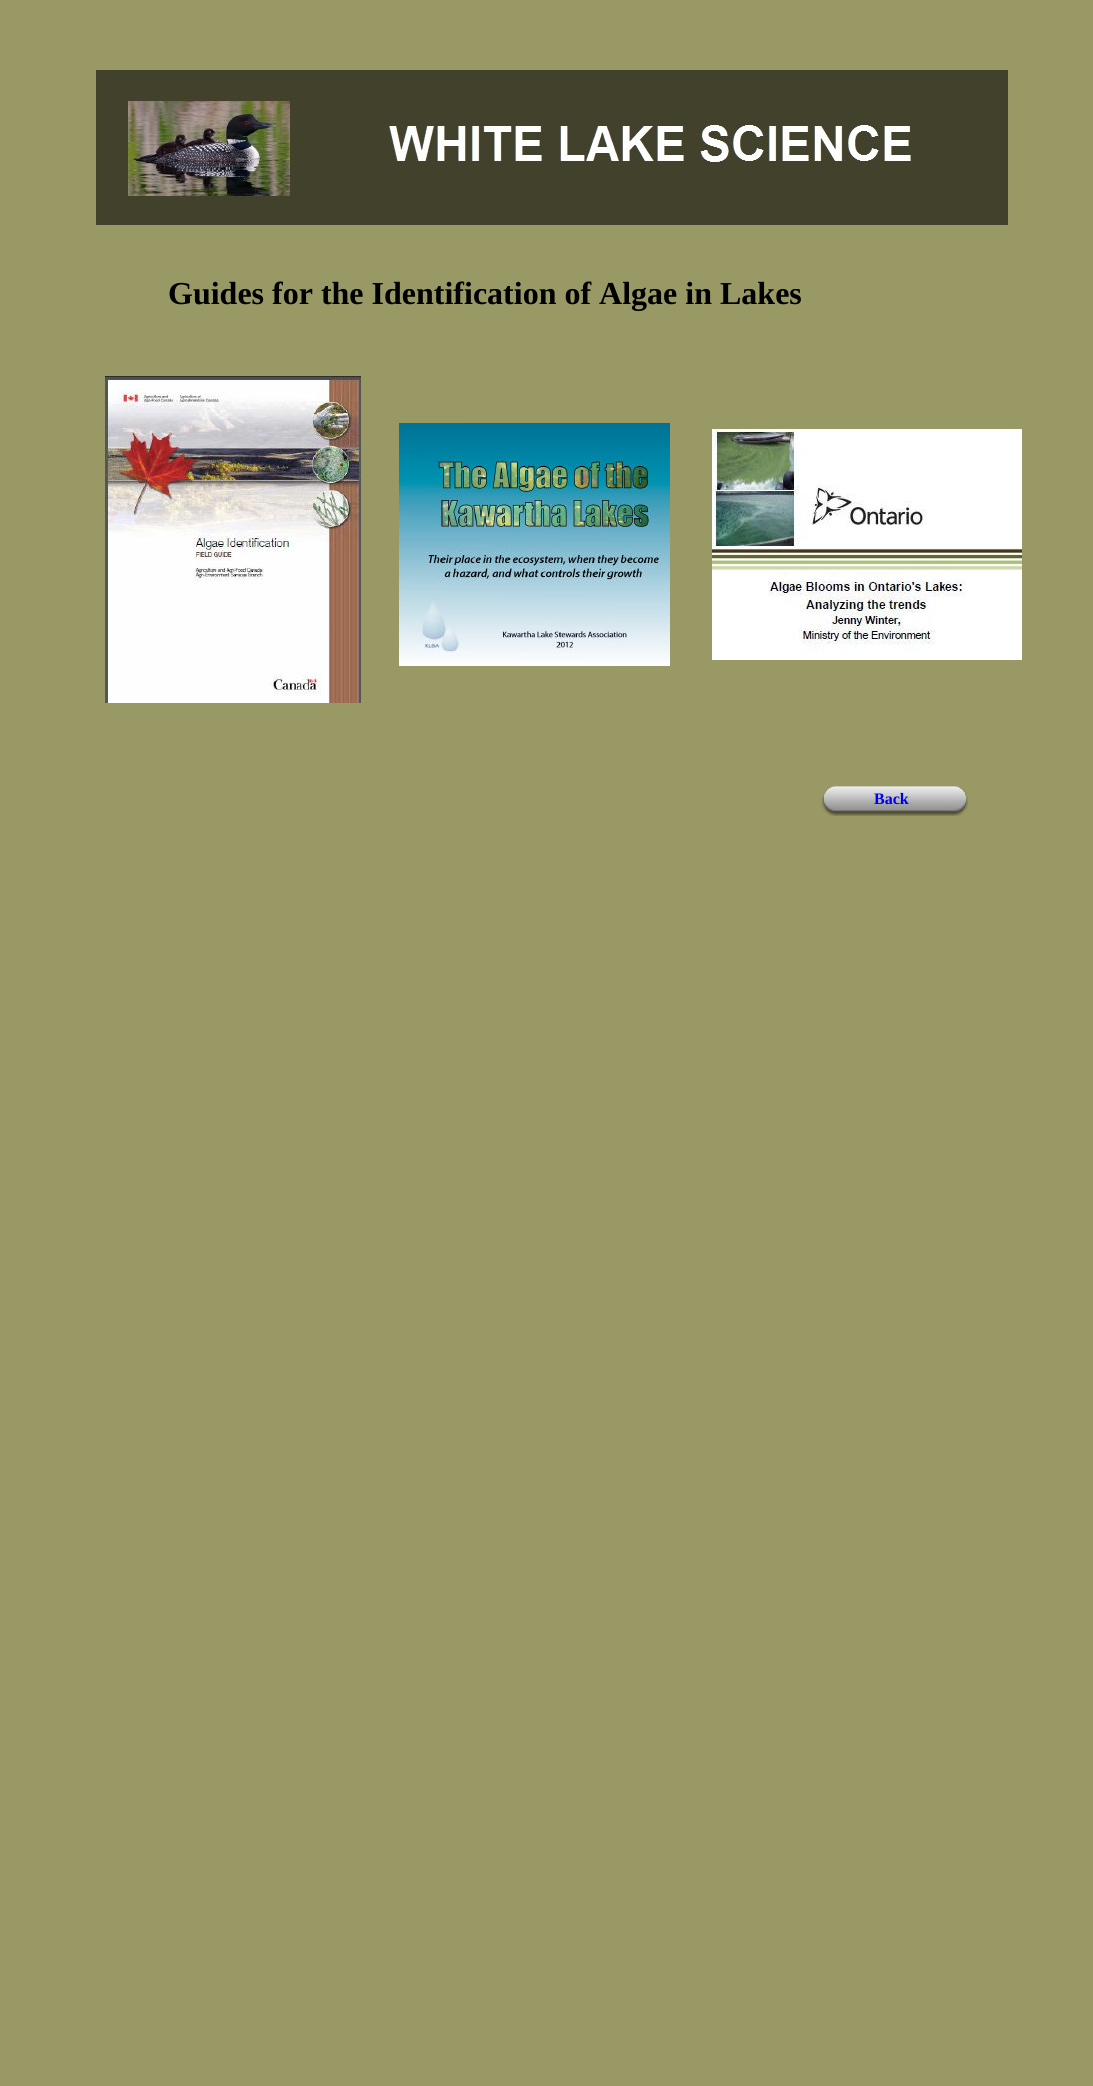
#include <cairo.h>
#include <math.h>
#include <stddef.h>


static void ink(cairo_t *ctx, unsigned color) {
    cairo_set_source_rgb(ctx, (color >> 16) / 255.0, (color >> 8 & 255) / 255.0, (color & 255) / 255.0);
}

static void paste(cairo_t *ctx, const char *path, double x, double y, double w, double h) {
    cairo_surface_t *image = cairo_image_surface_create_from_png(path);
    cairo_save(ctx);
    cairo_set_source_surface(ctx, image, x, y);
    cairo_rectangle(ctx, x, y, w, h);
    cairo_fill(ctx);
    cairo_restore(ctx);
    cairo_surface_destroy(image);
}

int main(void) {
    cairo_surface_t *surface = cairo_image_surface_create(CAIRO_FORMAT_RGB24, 1093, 2086);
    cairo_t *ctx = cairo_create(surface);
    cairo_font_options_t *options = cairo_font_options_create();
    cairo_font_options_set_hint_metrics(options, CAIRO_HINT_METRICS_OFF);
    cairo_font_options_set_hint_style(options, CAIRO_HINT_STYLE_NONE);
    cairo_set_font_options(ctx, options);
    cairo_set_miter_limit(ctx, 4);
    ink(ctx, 0x999965);
    cairo_paint(ctx);
    paste(ctx, "media/1.png", 96, 70, 912, 155);
    cairo_select_font_face(ctx, "Liberation Serif", CAIRO_FONT_SLANT_NORMAL, CAIRO_FONT_WEIGHT_BOLD);
    cairo_set_font_size(ctx, 32);
    ink(ctx, 0x000000);
    cairo_move_to(ctx, 168, 304);
    cairo_show_text(ctx, "Guides for the Identification of Algae in Lakes");
    paste(ctx, "media/2.png", 105, 376, 256, 327);
    paste(ctx, "media/3.png", 399, 423, 271, 243);
    paste(ctx, "media/4.png", 712, 429, 310, 231);
    paste(ctx, "media/5.png", 821, 786, 147, 30);
    cairo_set_font_size(ctx, 16);
    ink(ctx, 0x0000EE);
    cairo_move_to(ctx, 874, 804);
    cairo_show_text(ctx, "Back");
    cairo_surface_write_to_png(surface, "image.png");
    cairo_font_options_destroy(options);
    cairo_destroy(ctx);
    cairo_surface_destroy(surface);
    return 0;
}
